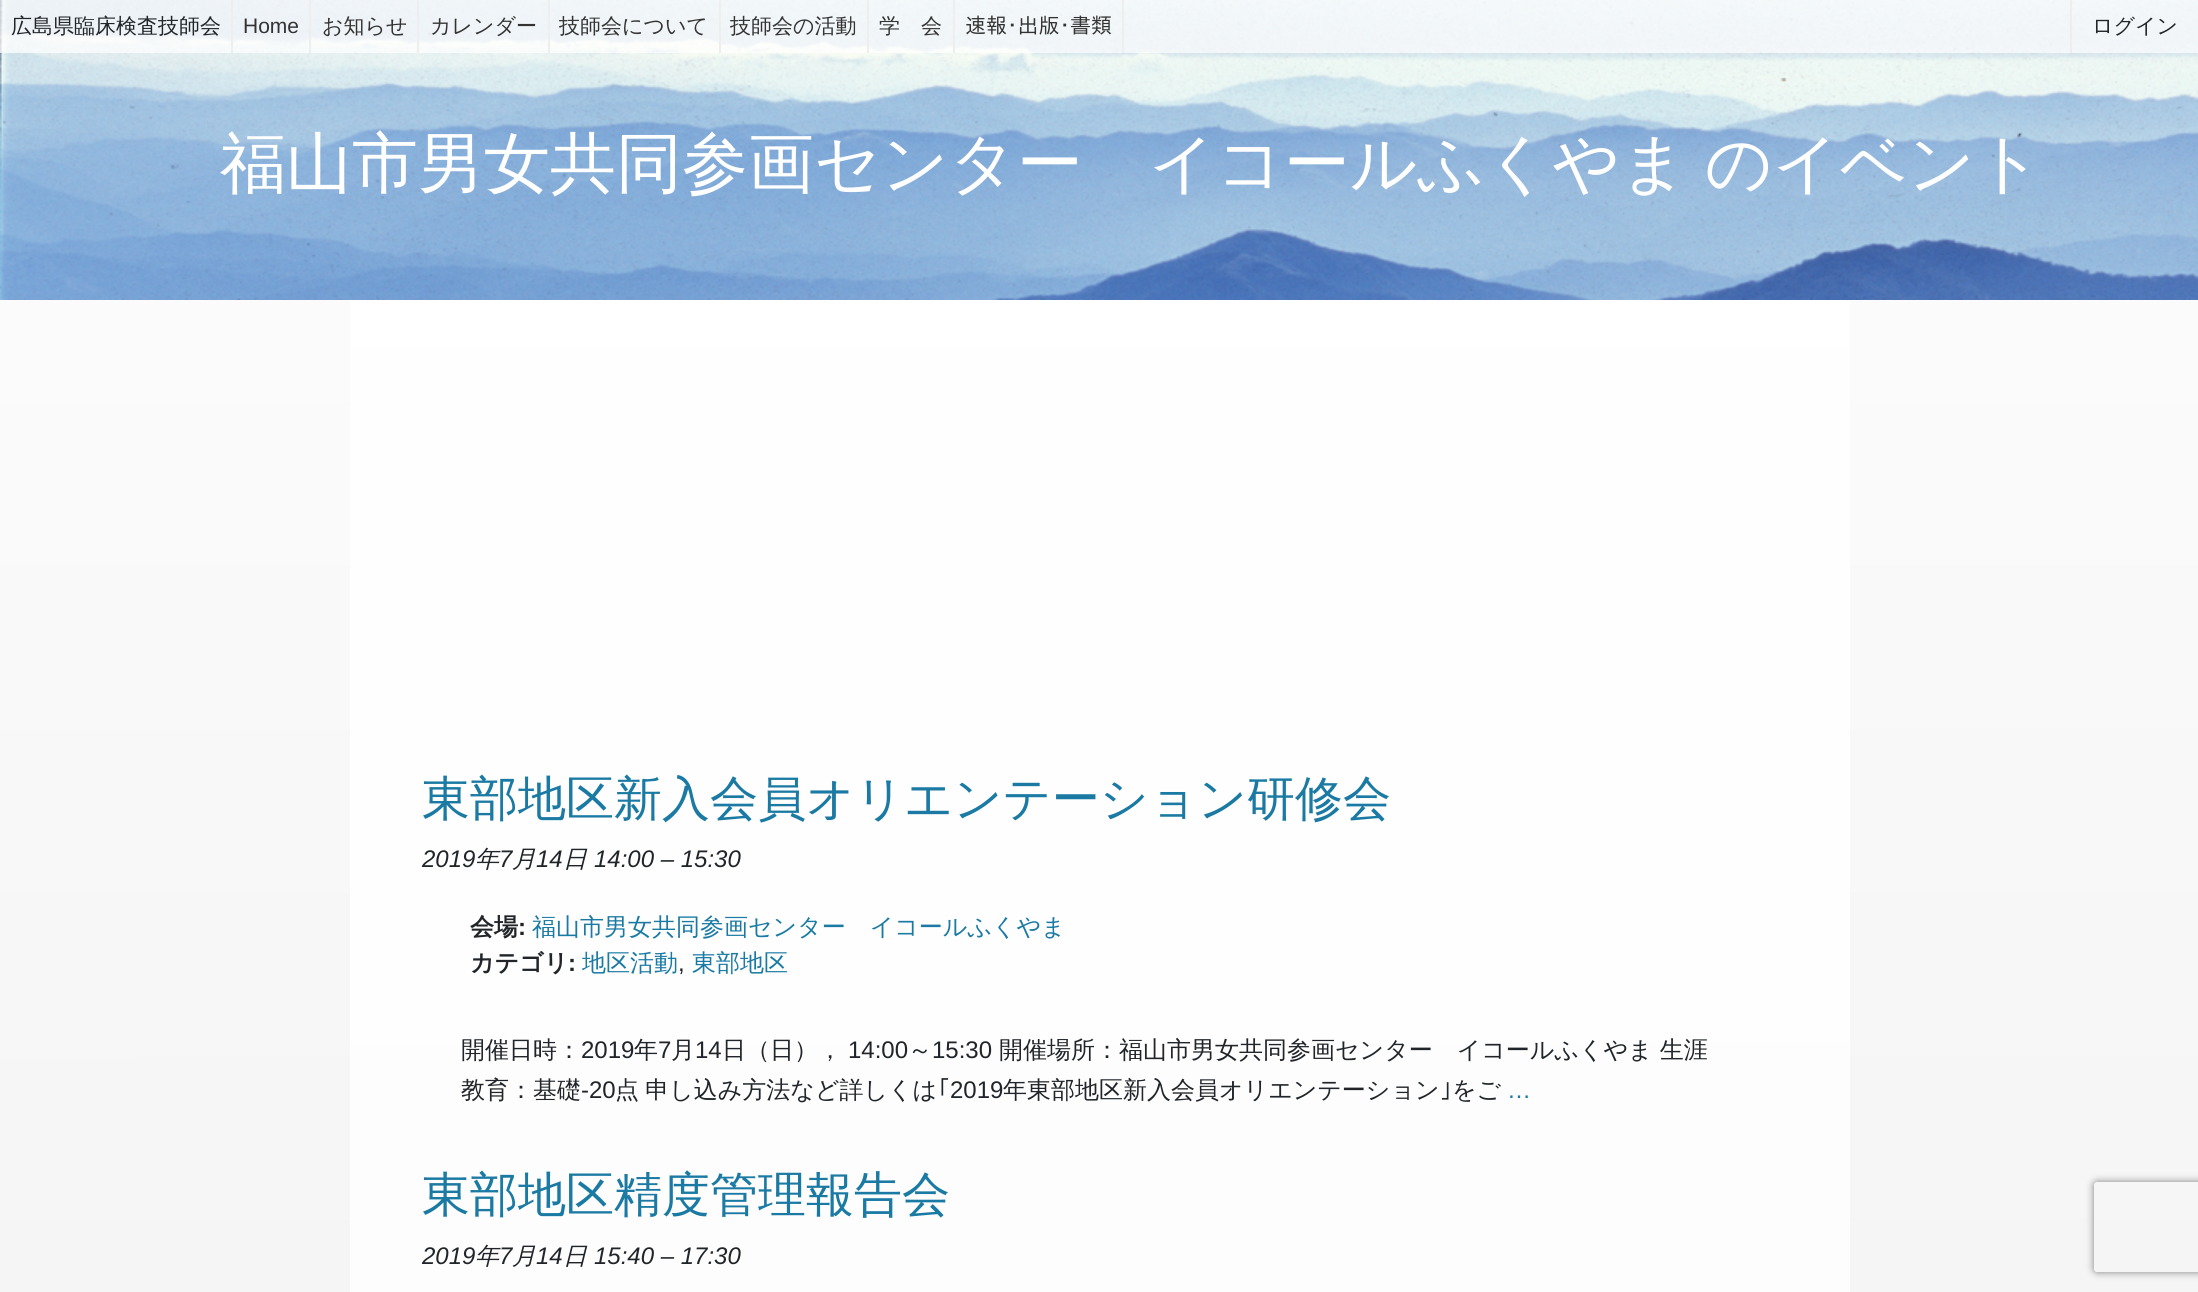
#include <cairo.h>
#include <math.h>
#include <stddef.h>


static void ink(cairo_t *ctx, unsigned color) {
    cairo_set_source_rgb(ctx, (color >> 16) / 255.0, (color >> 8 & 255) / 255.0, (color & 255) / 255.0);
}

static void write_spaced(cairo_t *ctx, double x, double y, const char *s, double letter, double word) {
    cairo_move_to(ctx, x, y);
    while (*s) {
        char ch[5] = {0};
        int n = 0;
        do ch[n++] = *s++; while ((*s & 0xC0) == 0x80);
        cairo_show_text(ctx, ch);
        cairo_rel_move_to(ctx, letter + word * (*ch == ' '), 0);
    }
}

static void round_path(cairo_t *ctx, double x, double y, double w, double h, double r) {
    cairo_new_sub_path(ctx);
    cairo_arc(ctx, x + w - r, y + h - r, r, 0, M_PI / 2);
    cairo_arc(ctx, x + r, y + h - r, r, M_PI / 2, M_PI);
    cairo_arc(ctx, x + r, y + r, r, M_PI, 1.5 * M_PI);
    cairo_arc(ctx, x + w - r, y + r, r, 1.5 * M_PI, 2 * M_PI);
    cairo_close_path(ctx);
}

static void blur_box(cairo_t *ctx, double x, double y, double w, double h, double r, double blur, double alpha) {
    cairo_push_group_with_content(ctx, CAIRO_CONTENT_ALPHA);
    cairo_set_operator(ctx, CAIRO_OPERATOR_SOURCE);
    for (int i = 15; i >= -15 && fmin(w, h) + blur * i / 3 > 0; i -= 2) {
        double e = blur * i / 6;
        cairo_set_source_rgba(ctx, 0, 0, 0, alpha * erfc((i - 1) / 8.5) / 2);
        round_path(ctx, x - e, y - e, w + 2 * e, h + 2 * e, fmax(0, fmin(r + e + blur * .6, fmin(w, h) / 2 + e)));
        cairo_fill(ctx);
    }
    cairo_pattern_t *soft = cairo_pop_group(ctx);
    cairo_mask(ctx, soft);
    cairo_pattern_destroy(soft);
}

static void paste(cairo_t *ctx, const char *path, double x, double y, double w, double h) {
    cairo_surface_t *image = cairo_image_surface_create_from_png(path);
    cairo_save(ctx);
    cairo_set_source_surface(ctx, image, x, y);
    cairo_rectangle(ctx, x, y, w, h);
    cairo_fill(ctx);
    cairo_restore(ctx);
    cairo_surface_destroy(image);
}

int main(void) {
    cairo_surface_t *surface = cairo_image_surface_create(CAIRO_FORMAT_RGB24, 2198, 1292);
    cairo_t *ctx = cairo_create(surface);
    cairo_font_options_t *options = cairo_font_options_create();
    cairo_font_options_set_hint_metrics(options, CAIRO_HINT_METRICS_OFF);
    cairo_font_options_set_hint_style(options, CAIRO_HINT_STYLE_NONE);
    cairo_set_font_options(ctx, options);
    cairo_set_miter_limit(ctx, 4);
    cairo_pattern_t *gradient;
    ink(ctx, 0xFFFFFF);
    cairo_paint(ctx);
    gradient = cairo_pattern_create_linear(1099, 0, 1100, 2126);
    cairo_pattern_add_color_stop_rgba(gradient, 0, 0.992, 0.992, 0.992, 1);
    cairo_pattern_add_color_stop_rgba(gradient, 1, 0.941, 0.941, 0.941, 1);
    cairo_set_source(ctx, gradient);
    cairo_pattern_destroy(gradient);
    cairo_rectangle(ctx, 0, 300, 2198, 992);
    cairo_fill(ctx);
    gradient = cairo_pattern_create_linear(1099, 0, 1100, 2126);
    cairo_pattern_add_color_stop_rgba(gradient, 0, 1, 1, 1, 1);
    cairo_pattern_add_color_stop_rgba(gradient, 1, 0.988, 0.988, 0.988, 1);
    cairo_set_source(ctx, gradient);
    cairo_pattern_destroy(gradient);
    cairo_rectangle(ctx, 350, 300, 1500, 992);
    cairo_fill(ctx);
    paste(ctx, "media/1.png", 0, 0, 2198, 300);
    cairo_set_source_rgba(ctx, 1, 1, 1, 0.7);
    cairo_rectangle(ctx, 0, 0, 2198, 53);
    cairo_fill(ctx);
    cairo_select_font_face(ctx, "WenQuanYi Zen Hei Medium", CAIRO_FONT_SLANT_NORMAL, CAIRO_FONT_WEIGHT_NORMAL);
    cairo_set_font_size(ctx, 21);
    ink(ctx, 0x212529);
    cairo_move_to(ctx, 11, 33);
    cairo_show_text(ctx, "広島県臨床検査技師会");
    ink(ctx, 0xEEEEEE);
    cairo_rectangle(ctx, 231, 0, 2, 53);
    cairo_fill(ctx);
    cairo_select_font_face(ctx, "Liberation Sans", CAIRO_FONT_SLANT_NORMAL, CAIRO_FONT_WEIGHT_NORMAL);
    ink(ctx, 0x333333);
    cairo_move_to(ctx, 243, 33);
    cairo_show_text(ctx, "Home");
    ink(ctx, 0xEEEEEE);
    cairo_rectangle(ctx, 309, 0, 2, 53);
    cairo_fill(ctx);
    cairo_select_font_face(ctx, "WenQuanYi Zen Hei Medium", CAIRO_FONT_SLANT_NORMAL, CAIRO_FONT_WEIGHT_NORMAL);
    ink(ctx, 0x333333);
    cairo_move_to(ctx, 322, 33);
    cairo_show_text(ctx, "お知らせ");
    ink(ctx, 0xEEEEEE);
    cairo_rectangle(ctx, 417, 0, 2, 53);
    cairo_fill(ctx);
    ink(ctx, 0x333333);
    cairo_move_to(ctx, 430, 33);
    cairo_show_text(ctx, "カレンダー");
    ink(ctx, 0xEEEEEE);
    cairo_rectangle(ctx, 548, 0, 2, 53);
    cairo_fill(ctx);
    ink(ctx, 0x333333);
    cairo_move_to(ctx, 559, 33);
    cairo_show_text(ctx, "技師会について");
    ink(ctx, 0xEEEEEE);
    cairo_rectangle(ctx, 719, 0, 2, 53);
    cairo_fill(ctx);
    ink(ctx, 0x333333);
    cairo_move_to(ctx, 730, 33);
    cairo_show_text(ctx, "技師会の活動");
    ink(ctx, 0xEEEEEE);
    cairo_rectangle(ctx, 867, 0, 2, 53);
    cairo_fill(ctx);
    ink(ctx, 0x333333);
    cairo_move_to(ctx, 879, 33);
    cairo_show_text(ctx, "学　会");
    ink(ctx, 0xEEEEEE);
    cairo_rectangle(ctx, 1122, 0, 2, 53);
    cairo_fill(ctx);
    cairo_rectangle(ctx, 953, 0, 2, 53);
    cairo_fill(ctx);
    cairo_select_font_face(ctx, "IPAGothic", CAIRO_FONT_SLANT_NORMAL, CAIRO_FONT_WEIGHT_NORMAL);
    ink(ctx, 0x333333);
    cairo_move_to(ctx, 965, 33);
    cairo_show_text(ctx, "速報･出版･書類");
    ink(ctx, 0xEEEEEE);
    cairo_rectangle(ctx, 2070, 0, 2, 53);
    cairo_fill(ctx);
    cairo_select_font_face(ctx, "WenQuanYi Zen Hei Medium", CAIRO_FONT_SLANT_NORMAL, CAIRO_FONT_WEIGHT_NORMAL);
    ink(ctx, 0x212529);
    cairo_move_to(ctx, 2092, 33);
    cairo_show_text(ctx, "ログイン");
    cairo_set_font_size(ctx, 66);
    ink(ctx, 0xFFFFFF);
    cairo_move_to(ctx, 220, 186);
    cairo_show_text(ctx, "福山市男女共同参画センター　イコールふくやま");
    cairo_move_to(ctx, 1705, 186);
    cairo_show_text(ctx, "のイベント");
    cairo_set_font_size(ctx, 48);
    ink(ctx, 0x1A7AA3);
    cairo_move_to(ctx, 422, 815);
    cairo_show_text(ctx, "東部地区新入会員オリエンテーション研修会");
    cairo_select_font_face(ctx, "Liberation Sans", CAIRO_FONT_SLANT_ITALIC, CAIRO_FONT_WEIGHT_NORMAL);
    cairo_set_font_size(ctx, 24);
    ink(ctx, 0x212529);
    cairo_move_to(ctx, 422, 867);
    cairo_show_text(ctx, "2019");
    cairo_select_font_face(ctx, "WenQuanYi Zen Hei Medium", CAIRO_FONT_SLANT_ITALIC, CAIRO_FONT_WEIGHT_NORMAL);
    cairo_move_to(ctx, 475, 867);
    cairo_show_text(ctx, "年");
    cairo_select_font_face(ctx, "Liberation Sans", CAIRO_FONT_SLANT_ITALIC, CAIRO_FONT_WEIGHT_NORMAL);
    cairo_move_to(ctx, 499, 867);
    cairo_show_text(ctx, "7");
    cairo_select_font_face(ctx, "WenQuanYi Zen Hei Medium", CAIRO_FONT_SLANT_ITALIC, CAIRO_FONT_WEIGHT_NORMAL);
    cairo_move_to(ctx, 512, 867);
    cairo_show_text(ctx, "月");
    cairo_select_font_face(ctx, "Liberation Sans", CAIRO_FONT_SLANT_ITALIC, CAIRO_FONT_WEIGHT_NORMAL);
    cairo_move_to(ctx, 536, 867);
    cairo_show_text(ctx, "14");
    cairo_select_font_face(ctx, "WenQuanYi Zen Hei Medium", CAIRO_FONT_SLANT_ITALIC, CAIRO_FONT_WEIGHT_NORMAL);
    cairo_move_to(ctx, 563, 867);
    cairo_show_text(ctx, "日");
    cairo_select_font_face(ctx, "Liberation Sans", CAIRO_FONT_SLANT_ITALIC, CAIRO_FONT_WEIGHT_NORMAL);
    cairo_move_to(ctx, 594, 867);
    cairo_show_text(ctx, "14:00 – 15:30");
    cairo_select_font_face(ctx, "WenQuanYi Zen Hei", CAIRO_FONT_SLANT_NORMAL, CAIRO_FONT_WEIGHT_BOLD);
    cairo_move_to(ctx, 470, 935);
    cairo_show_text(ctx, "会場");
    cairo_select_font_face(ctx, "Liberation Sans", CAIRO_FONT_SLANT_NORMAL, CAIRO_FONT_WEIGHT_BOLD);
    cairo_move_to(ctx, 518, 935);
    cairo_show_text(ctx, ":");
    cairo_select_font_face(ctx, "WenQuanYi Zen Hei Medium", CAIRO_FONT_SLANT_NORMAL, CAIRO_FONT_WEIGHT_NORMAL);
    ink(ctx, 0x1A7AA3);
    cairo_move_to(ctx, 532, 935);
    cairo_show_text(ctx, "福山市男女共同参画センター　イコールふくやま");
    cairo_select_font_face(ctx, "WenQuanYi Zen Hei", CAIRO_FONT_SLANT_NORMAL, CAIRO_FONT_WEIGHT_BOLD);
    ink(ctx, 0x212529);
    cairo_move_to(ctx, 470, 971);
    cairo_show_text(ctx, "カテゴリ");
    cairo_select_font_face(ctx, "Liberation Sans", CAIRO_FONT_SLANT_NORMAL, CAIRO_FONT_WEIGHT_BOLD);
    cairo_move_to(ctx, 568, 971);
    cairo_show_text(ctx, ":");
    cairo_select_font_face(ctx, "WenQuanYi Zen Hei Medium", CAIRO_FONT_SLANT_NORMAL, CAIRO_FONT_WEIGHT_NORMAL);
    ink(ctx, 0x1A7AA3);
    cairo_move_to(ctx, 582, 971);
    cairo_show_text(ctx, "地区活動");
    cairo_select_font_face(ctx, "Liberation Sans", CAIRO_FONT_SLANT_NORMAL, CAIRO_FONT_WEIGHT_NORMAL);
    ink(ctx, 0x212529);
    cairo_move_to(ctx, 678, 971);
    cairo_show_text(ctx, ",");
    cairo_select_font_face(ctx, "WenQuanYi Zen Hei Medium", CAIRO_FONT_SLANT_NORMAL, CAIRO_FONT_WEIGHT_NORMAL);
    ink(ctx, 0x1A7AA3);
    cairo_move_to(ctx, 692, 971);
    cairo_show_text(ctx, "東部地区");
    ink(ctx, 0x212529);
    cairo_move_to(ctx, 461, 1058);
    cairo_show_text(ctx, "開催日時：");
    cairo_select_font_face(ctx, "Liberation Sans", CAIRO_FONT_SLANT_NORMAL, CAIRO_FONT_WEIGHT_NORMAL);
    cairo_move_to(ctx, 581, 1058);
    cairo_show_text(ctx, "2019");
    cairo_select_font_face(ctx, "WenQuanYi Zen Hei Medium", CAIRO_FONT_SLANT_NORMAL, CAIRO_FONT_WEIGHT_NORMAL);
    cairo_move_to(ctx, 634, 1058);
    cairo_show_text(ctx, "年");
    cairo_select_font_face(ctx, "Liberation Sans", CAIRO_FONT_SLANT_NORMAL, CAIRO_FONT_WEIGHT_NORMAL);
    cairo_move_to(ctx, 658, 1058);
    cairo_show_text(ctx, "7");
    cairo_select_font_face(ctx, "WenQuanYi Zen Hei Medium", CAIRO_FONT_SLANT_NORMAL, CAIRO_FONT_WEIGHT_NORMAL);
    cairo_move_to(ctx, 671, 1058);
    cairo_show_text(ctx, "月");
    cairo_select_font_face(ctx, "Liberation Sans", CAIRO_FONT_SLANT_NORMAL, CAIRO_FONT_WEIGHT_NORMAL);
    cairo_move_to(ctx, 695, 1058);
    cairo_show_text(ctx, "14");
    cairo_select_font_face(ctx, "WenQuanYi Zen Hei Medium", CAIRO_FONT_SLANT_NORMAL, CAIRO_FONT_WEIGHT_NORMAL);
    cairo_move_to(ctx, 722, 1058);
    cairo_show_text(ctx, "日（日），");
    cairo_select_font_face(ctx, "Liberation Sans", CAIRO_FONT_SLANT_NORMAL, CAIRO_FONT_WEIGHT_NORMAL);
    cairo_move_to(ctx, 848, 1058);
    cairo_show_text(ctx, "14:00");
    cairo_select_font_face(ctx, "WenQuanYi Zen Hei Medium", CAIRO_FONT_SLANT_NORMAL, CAIRO_FONT_WEIGHT_NORMAL);
    cairo_move_to(ctx, 908, 1058);
    cairo_show_text(ctx, "～");
    cairo_select_font_face(ctx, "Liberation Sans", CAIRO_FONT_SLANT_NORMAL, CAIRO_FONT_WEIGHT_NORMAL);
    cairo_move_to(ctx, 932, 1058);
    cairo_show_text(ctx, "15:30");
    cairo_select_font_face(ctx, "WenQuanYi Zen Hei Medium", CAIRO_FONT_SLANT_NORMAL, CAIRO_FONT_WEIGHT_NORMAL);
    cairo_move_to(ctx, 999, 1058);
    cairo_show_text(ctx, "開催場所：福山市男女共同参画センター　イコールふくやま 生涯");
    cairo_move_to(ctx, 461, 1098);
    cairo_show_text(ctx, "教育：基礎");
    cairo_select_font_face(ctx, "Liberation Sans", CAIRO_FONT_SLANT_NORMAL, CAIRO_FONT_WEIGHT_NORMAL);
    cairo_move_to(ctx, 581, 1098);
    cairo_show_text(ctx, "-20");
    cairo_select_font_face(ctx, "WenQuanYi Zen Hei Medium", CAIRO_FONT_SLANT_NORMAL, CAIRO_FONT_WEIGHT_NORMAL);
    write_spaced(ctx, 615, 1098, "点 申し込み方法など詳しくは", 0, -1);
    cairo_select_font_face(ctx, "IPAGothic", CAIRO_FONT_SLANT_NORMAL, CAIRO_FONT_WEIGHT_NORMAL);
    cairo_move_to(ctx, 938, 1098);
    cairo_show_text(ctx, "｢");
    cairo_select_font_face(ctx, "Liberation Sans", CAIRO_FONT_SLANT_NORMAL, CAIRO_FONT_WEIGHT_NORMAL);
    cairo_move_to(ctx, 950, 1098);
    cairo_show_text(ctx, "2019");
    cairo_select_font_face(ctx, "WenQuanYi Zen Hei Medium", CAIRO_FONT_SLANT_NORMAL, CAIRO_FONT_WEIGHT_NORMAL);
    cairo_move_to(ctx, 1003, 1098);
    cairo_show_text(ctx, "年東部地区新入会員オリエンテーション");
    cairo_select_font_face(ctx, "IPAGothic", CAIRO_FONT_SLANT_NORMAL, CAIRO_FONT_WEIGHT_NORMAL);
    cairo_move_to(ctx, 1440, 1098);
    cairo_show_text(ctx, "｣");
    cairo_select_font_face(ctx, "WenQuanYi Zen Hei Medium", CAIRO_FONT_SLANT_NORMAL, CAIRO_FONT_WEIGHT_NORMAL);
    cairo_move_to(ctx, 1452, 1098);
    cairo_show_text(ctx, "をご");
    cairo_select_font_face(ctx, "Liberation Sans", CAIRO_FONT_SLANT_NORMAL, CAIRO_FONT_WEIGHT_NORMAL);
    ink(ctx, 0x1A7AA3);
    cairo_move_to(ctx, 1507, 1098);
    cairo_show_text(ctx, "…");
    cairo_select_font_face(ctx, "WenQuanYi Zen Hei Medium", CAIRO_FONT_SLANT_NORMAL, CAIRO_FONT_WEIGHT_NORMAL);
    cairo_set_font_size(ctx, 48);
    cairo_move_to(ctx, 422, 1211);
    cairo_show_text(ctx, "東部地区精度管理報告会");
    cairo_select_font_face(ctx, "Liberation Sans", CAIRO_FONT_SLANT_ITALIC, CAIRO_FONT_WEIGHT_NORMAL);
    cairo_set_font_size(ctx, 24);
    ink(ctx, 0x212529);
    cairo_move_to(ctx, 422, 1264);
    cairo_show_text(ctx, "2019");
    cairo_select_font_face(ctx, "WenQuanYi Zen Hei Medium", CAIRO_FONT_SLANT_ITALIC, CAIRO_FONT_WEIGHT_NORMAL);
    cairo_move_to(ctx, 475, 1264);
    cairo_show_text(ctx, "年");
    cairo_select_font_face(ctx, "Liberation Sans", CAIRO_FONT_SLANT_ITALIC, CAIRO_FONT_WEIGHT_NORMAL);
    cairo_move_to(ctx, 499, 1264);
    cairo_show_text(ctx, "7");
    cairo_select_font_face(ctx, "WenQuanYi Zen Hei Medium", CAIRO_FONT_SLANT_ITALIC, CAIRO_FONT_WEIGHT_NORMAL);
    cairo_move_to(ctx, 512, 1264);
    cairo_show_text(ctx, "月");
    cairo_select_font_face(ctx, "Liberation Sans", CAIRO_FONT_SLANT_ITALIC, CAIRO_FONT_WEIGHT_NORMAL);
    cairo_move_to(ctx, 536, 1264);
    cairo_show_text(ctx, "14");
    cairo_select_font_face(ctx, "WenQuanYi Zen Hei Medium", CAIRO_FONT_SLANT_ITALIC, CAIRO_FONT_WEIGHT_NORMAL);
    cairo_move_to(ctx, 563, 1264);
    cairo_show_text(ctx, "日");
    cairo_select_font_face(ctx, "Liberation Sans", CAIRO_FONT_SLANT_ITALIC, CAIRO_FONT_WEIGHT_NORMAL);
    cairo_move_to(ctx, 594, 1264);
    cairo_show_text(ctx, "15:40 – 17:30");
    cairo_save(ctx);
    cairo_set_fill_rule(ctx, CAIRO_FILL_RULE_EVEN_ODD);
    cairo_new_path(ctx);
    cairo_move_to(ctx, 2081, 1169);
    cairo_line_to(ctx, 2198, 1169);
    cairo_line_to(ctx, 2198, 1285);
    cairo_line_to(ctx, 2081, 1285);
    cairo_close_path(ctx);
    cairo_move_to(ctx, 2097, 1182);
    cairo_line_to(ctx, 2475, 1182);
    cairo_curve_to(ctx, 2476.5, 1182, 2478, 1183.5, 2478, 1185);
    cairo_line_to(ctx, 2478, 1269);
    cairo_curve_to(ctx, 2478, 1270.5, 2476.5, 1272, 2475, 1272);
    cairo_line_to(ctx, 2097, 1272);
    cairo_curve_to(ctx, 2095.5, 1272, 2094, 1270.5, 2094, 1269);
    cairo_line_to(ctx, 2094, 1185);
    cairo_curve_to(ctx, 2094, 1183.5, 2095.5, 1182, 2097, 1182);
    cairo_close_path(ctx);
    cairo_clip(ctx);
    ink(ctx, 0x808080);
    blur_box(ctx, 2094, 1182, 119, 90, 3, 4, 1);
    cairo_restore(ctx);
    cairo_surface_write_to_png(surface, "image.png");
    cairo_font_options_destroy(options);
    cairo_destroy(ctx);
    cairo_surface_destroy(surface);
    return 0;
}
